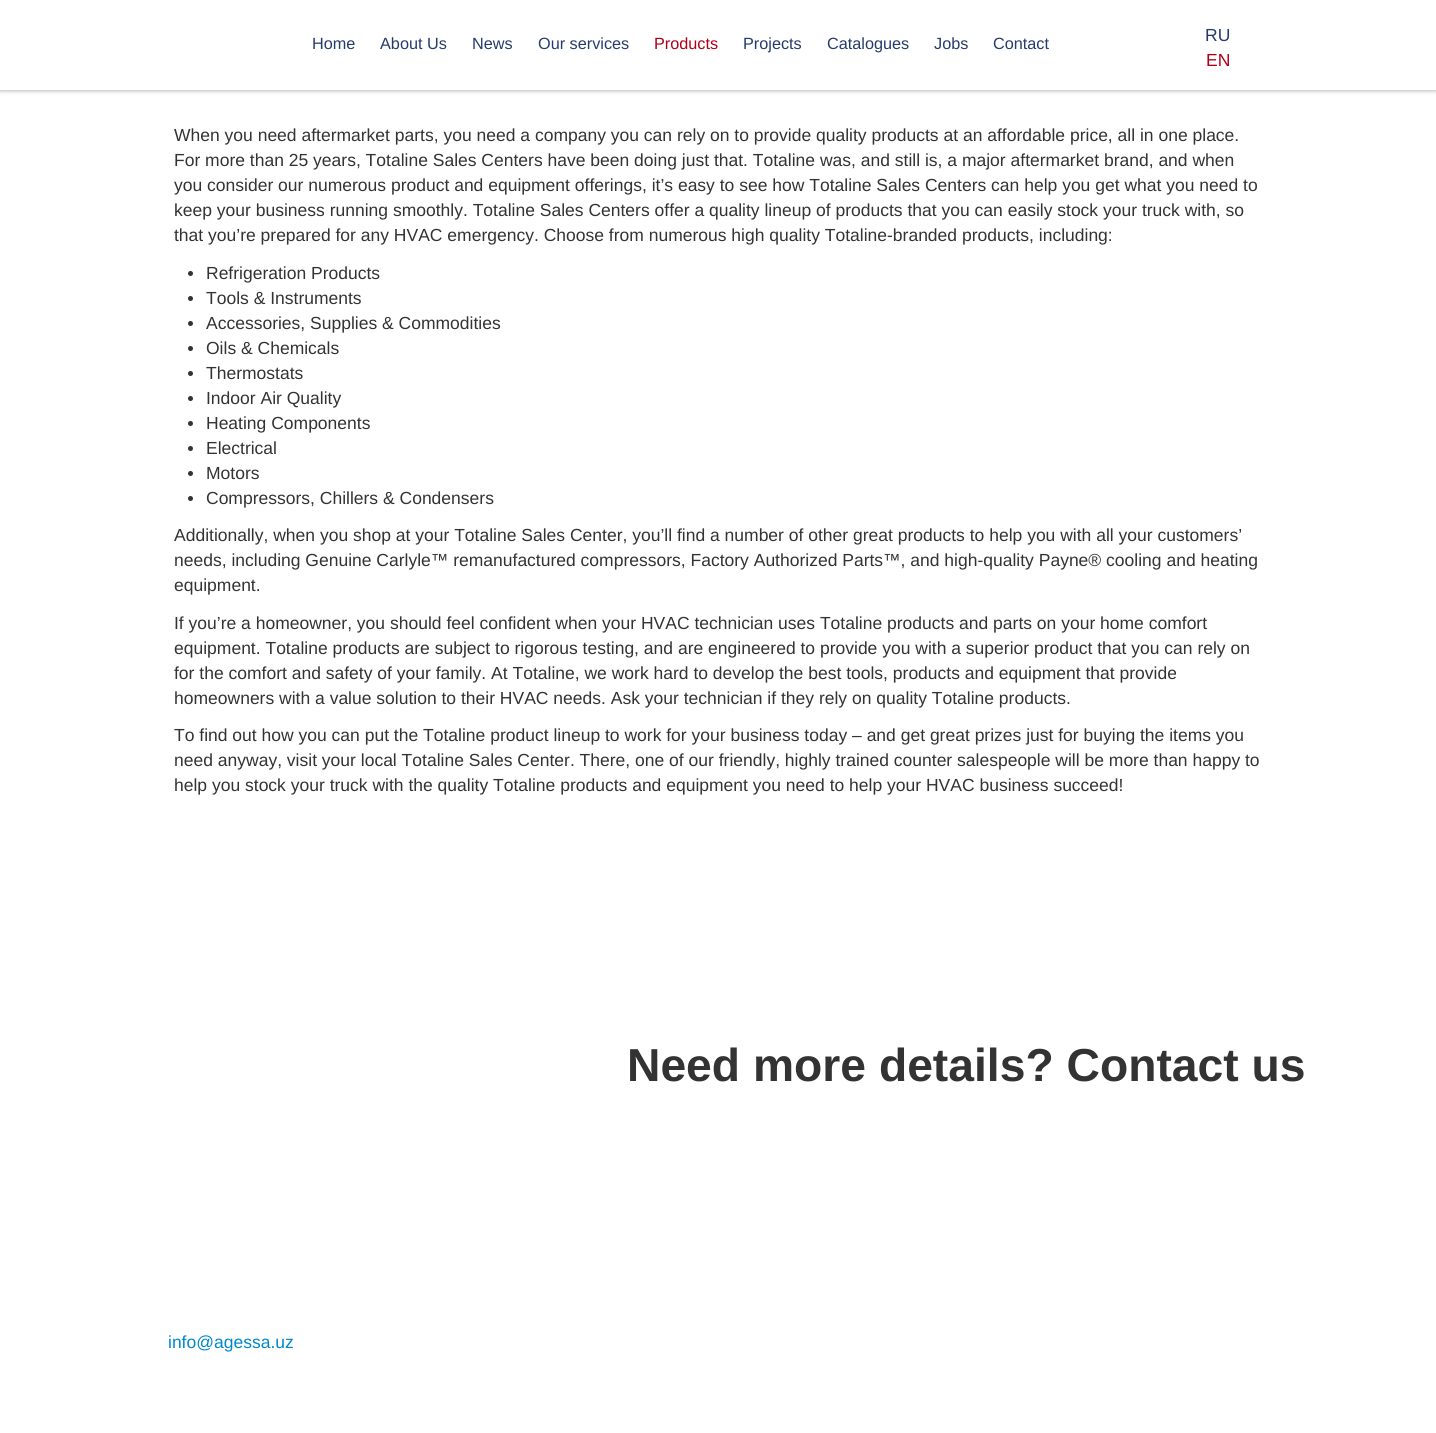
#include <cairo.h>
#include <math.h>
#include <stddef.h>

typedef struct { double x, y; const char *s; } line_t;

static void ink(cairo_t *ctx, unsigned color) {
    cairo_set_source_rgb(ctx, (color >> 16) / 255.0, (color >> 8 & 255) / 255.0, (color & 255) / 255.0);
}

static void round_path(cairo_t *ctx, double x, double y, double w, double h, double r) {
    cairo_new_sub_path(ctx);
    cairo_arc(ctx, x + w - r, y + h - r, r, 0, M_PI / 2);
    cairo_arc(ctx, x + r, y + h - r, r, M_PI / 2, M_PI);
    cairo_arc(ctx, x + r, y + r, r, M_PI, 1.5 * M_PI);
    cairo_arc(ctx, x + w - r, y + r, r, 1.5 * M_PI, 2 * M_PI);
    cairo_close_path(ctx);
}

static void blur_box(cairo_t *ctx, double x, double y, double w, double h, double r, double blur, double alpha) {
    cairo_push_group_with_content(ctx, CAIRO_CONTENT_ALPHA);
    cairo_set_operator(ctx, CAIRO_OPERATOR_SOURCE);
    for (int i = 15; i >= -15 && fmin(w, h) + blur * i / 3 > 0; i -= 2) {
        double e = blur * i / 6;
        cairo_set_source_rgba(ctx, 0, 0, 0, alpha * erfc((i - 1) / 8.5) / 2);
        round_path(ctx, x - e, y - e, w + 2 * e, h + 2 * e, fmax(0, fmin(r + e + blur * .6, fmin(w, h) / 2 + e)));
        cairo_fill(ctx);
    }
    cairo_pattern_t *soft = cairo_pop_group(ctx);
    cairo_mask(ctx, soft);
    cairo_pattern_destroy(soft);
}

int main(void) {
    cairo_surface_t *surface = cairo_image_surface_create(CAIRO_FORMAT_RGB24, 1436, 1433);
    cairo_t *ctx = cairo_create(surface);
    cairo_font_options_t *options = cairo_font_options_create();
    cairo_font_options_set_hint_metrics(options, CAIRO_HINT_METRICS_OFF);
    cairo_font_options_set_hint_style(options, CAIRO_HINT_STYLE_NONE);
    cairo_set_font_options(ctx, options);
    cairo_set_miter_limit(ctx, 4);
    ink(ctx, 0xFFFFFF);
    cairo_paint(ctx);
    ink(ctx, 0x989898);
    blur_box(ctx, 0, 0, 1436, 90, 0, 2.5, 1);
    ink(ctx, 0xFFFFFF);
    cairo_rectangle(ctx, 0, 0, 1436, 90);
    cairo_fill(ctx);
    cairo_select_font_face(ctx, "Liberation Sans", CAIRO_FONT_SLANT_NORMAL, CAIRO_FONT_WEIGHT_NORMAL);
    cairo_set_font_size(ctx, 16.25);
    ink(ctx, 0x253C6B);
    {
        static const line_t items[] = {
            {312, 49, "Home"},
            {380, 49, "About Us"},
            {472, 49, "News"},
            {538, 49, "Our services"},
        };
        for (size_t i = 0; i < sizeof items / sizeof *items; i++) {
            cairo_move_to(ctx, items[i].x, items[i].y);
            cairo_show_text(ctx, items[i].s);
        }
    }
    ink(ctx, 0xB00019);
    cairo_move_to(ctx, 654, 49);
    cairo_show_text(ctx, "Products");
    ink(ctx, 0x253C6B);
    {
        static const line_t items[] = {
            {743, 49, "Projects"},
            {827, 49, "Catalogues"},
            {934, 49, "Jobs"},
            {993, 49, "Contact"},
        };
        for (size_t i = 0; i < sizeof items / sizeof *items; i++) {
            cairo_move_to(ctx, items[i].x, items[i].y);
            cairo_show_text(ctx, items[i].s);
        }
    }
    cairo_set_font_size(ctx, 17.5);
    cairo_move_to(ctx, 1205, 41);
    cairo_show_text(ctx, "RU");
    ink(ctx, 0xB00019);
    cairo_move_to(ctx, 1206, 66);
    cairo_show_text(ctx, "EN");
    ink(ctx, 0x333333);
    {
        static const line_t items[] = {
            {174, 141, "When you need aftermarket parts, you need a company you can rely on to provide quality products at an affordable price, all in one place."},
            {174, 166, "For more than 25 years, Totaline Sales Centers have been doing just that. Totaline was, and still is, a major aftermarket brand, and when"},
            {174, 191, "you consider our numerous product and equipment offerings, it’s easy to see how Totaline Sales Centers can help you get what you need to"},
            {174, 216, "keep your business running smoothly. Totaline Sales Centers offer a quality lineup of products that you can easily stock your truck with, so"},
            {174, 241, "that you’re prepared for any HVAC emergency. Choose from numerous high quality Totaline-branded products, including:"},
        };
        for (size_t i = 0; i < sizeof items / sizeof *items; i++) {
            cairo_move_to(ctx, items[i].x, items[i].y);
            cairo_show_text(ctx, items[i].s);
        }
    }
    cairo_new_path(ctx);
    cairo_arc(ctx, 190.5, 273.5, 2.5, 0, 2 * M_PI);
    cairo_fill(ctx);
    cairo_move_to(ctx, 206, 279);
    cairo_show_text(ctx, "Refrigeration Products");
    cairo_new_path(ctx);
    cairo_arc(ctx, 190.5, 298.5, 2.5, 0, 2 * M_PI);
    cairo_fill(ctx);
    cairo_move_to(ctx, 206, 304);
    cairo_show_text(ctx, "Tools & Instruments");
    cairo_new_path(ctx);
    cairo_arc(ctx, 190.5, 323.5, 2.5, 0, 2 * M_PI);
    cairo_fill(ctx);
    cairo_move_to(ctx, 206, 329);
    cairo_show_text(ctx, "Accessories, Supplies & Commodities");
    cairo_new_path(ctx);
    cairo_arc(ctx, 190.5, 348.5, 2.5, 0, 2 * M_PI);
    cairo_fill(ctx);
    cairo_move_to(ctx, 206, 354);
    cairo_show_text(ctx, "Oils & Chemicals");
    cairo_new_path(ctx);
    cairo_arc(ctx, 190.5, 373.5, 2.5, 0, 2 * M_PI);
    cairo_fill(ctx);
    cairo_move_to(ctx, 206, 379);
    cairo_show_text(ctx, "Thermostats");
    cairo_new_path(ctx);
    cairo_arc(ctx, 190.5, 398.5, 2.5, 0, 2 * M_PI);
    cairo_fill(ctx);
    cairo_move_to(ctx, 206, 404);
    cairo_show_text(ctx, "Indoor Air Quality");
    cairo_new_path(ctx);
    cairo_arc(ctx, 190.5, 423.5, 2.5, 0, 2 * M_PI);
    cairo_fill(ctx);
    cairo_move_to(ctx, 206, 429);
    cairo_show_text(ctx, "Heating Components");
    cairo_new_path(ctx);
    cairo_arc(ctx, 190.5, 448.5, 2.5, 0, 2 * M_PI);
    cairo_fill(ctx);
    cairo_move_to(ctx, 206, 454);
    cairo_show_text(ctx, "Electrical");
    cairo_new_path(ctx);
    cairo_arc(ctx, 190.5, 473.5, 2.5, 0, 2 * M_PI);
    cairo_fill(ctx);
    cairo_move_to(ctx, 206, 479);
    cairo_show_text(ctx, "Motors");
    cairo_new_path(ctx);
    cairo_arc(ctx, 190.5, 498.5, 2.5, 0, 2 * M_PI);
    cairo_fill(ctx);
    {
        static const line_t items[] = {
            {206, 504, "Compressors, Chillers & Condensers"},
            {174, 541, "Additionally, when you shop at your Totaline Sales Center, you’ll find a number of other great products to help you with all your customers’"},
            {174, 566, "needs, including Genuine Carlyle™ remanufactured compressors, Factory Authorized Parts™, and high-quality Payne® cooling and heating"},
            {174, 591, "equipment."},
            {174, 629, "If you’re a homeowner, you should feel confident when your HVAC technician uses Totaline products and parts on your home comfort"},
            {174, 654, "equipment. Totaline products are subject to rigorous testing, and are engineered to provide you with a superior product that you can rely on"},
            {174, 679, "for the comfort and safety of your family. At Totaline, we work hard to develop the best tools, products and equipment that provide"},
            {174, 704, "homeowners with a value solution to their HVAC needs. Ask your technician if they rely on quality Totaline products."},
            {174, 741, "To find out how you can put the Totaline product lineup to work for your business today – and get great prizes just for buying the items you"},
            {174, 766, "need anyway, visit your local Totaline Sales Center. There, one of our friendly, highly trained counter salespeople will be more than happy to"},
            {174, 791, "help you stock your truck with the quality Totaline products and equipment you need to help your HVAC business succeed!"},
        };
        for (size_t i = 0; i < sizeof items / sizeof *items; i++) {
            cairo_move_to(ctx, items[i].x, items[i].y);
            cairo_show_text(ctx, items[i].s);
        }
    }
    cairo_select_font_face(ctx, "Liberation Sans", CAIRO_FONT_SLANT_NORMAL, CAIRO_FONT_WEIGHT_BOLD);
    cairo_set_font_size(ctx, 46.25);
    cairo_move_to(ctx, 627, 1081);
    cairo_show_text(ctx, "Need more details? Contact us");
    cairo_select_font_face(ctx, "Liberation Sans", CAIRO_FONT_SLANT_NORMAL, CAIRO_FONT_WEIGHT_NORMAL);
    cairo_set_font_size(ctx, 17.5);
    ink(ctx, 0x0088CC);
    cairo_move_to(ctx, 168, 1348);
    cairo_show_text(ctx, "info@agessa.uz");
    cairo_surface_write_to_png(surface, "image.png");
    cairo_font_options_destroy(options);
    cairo_destroy(ctx);
    cairo_surface_destroy(surface);
    return 0;
}
